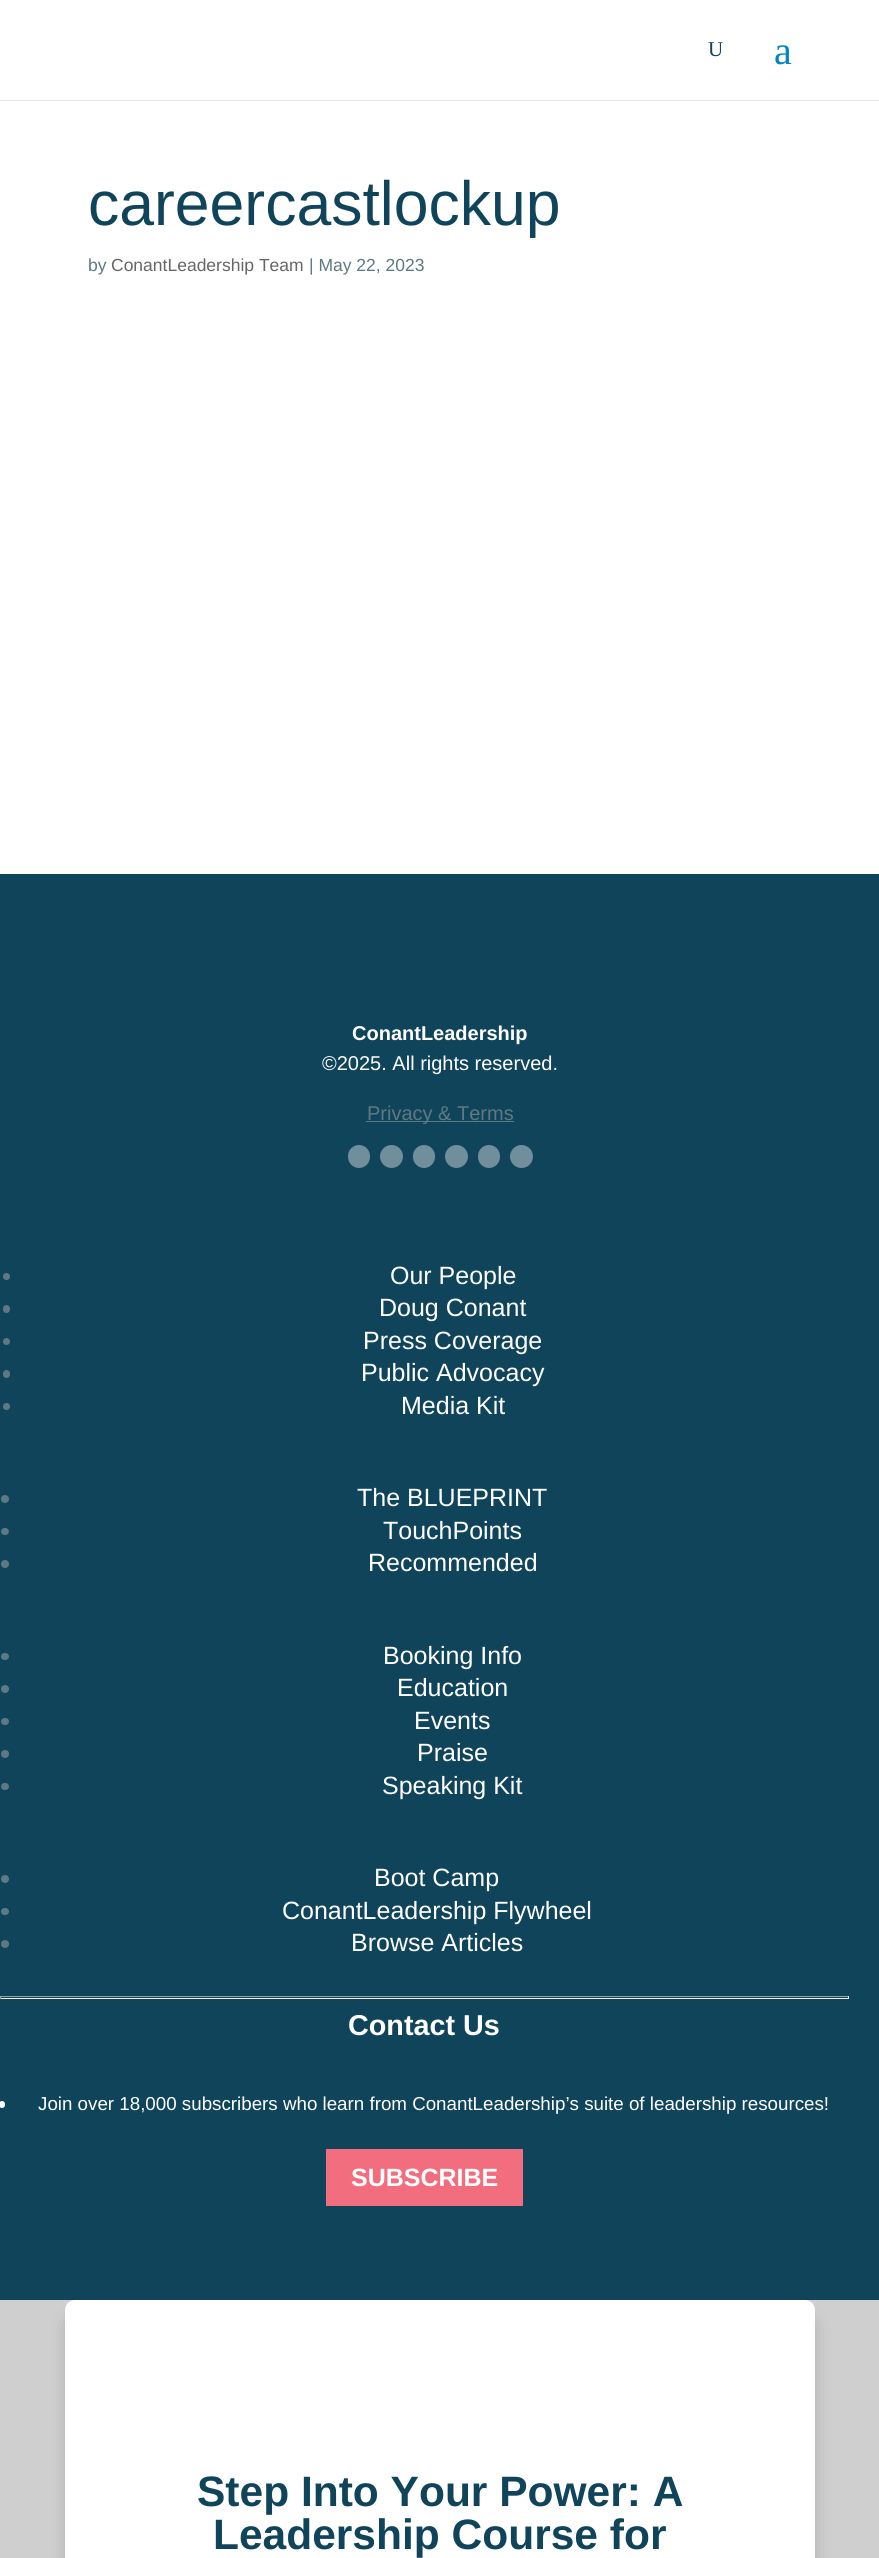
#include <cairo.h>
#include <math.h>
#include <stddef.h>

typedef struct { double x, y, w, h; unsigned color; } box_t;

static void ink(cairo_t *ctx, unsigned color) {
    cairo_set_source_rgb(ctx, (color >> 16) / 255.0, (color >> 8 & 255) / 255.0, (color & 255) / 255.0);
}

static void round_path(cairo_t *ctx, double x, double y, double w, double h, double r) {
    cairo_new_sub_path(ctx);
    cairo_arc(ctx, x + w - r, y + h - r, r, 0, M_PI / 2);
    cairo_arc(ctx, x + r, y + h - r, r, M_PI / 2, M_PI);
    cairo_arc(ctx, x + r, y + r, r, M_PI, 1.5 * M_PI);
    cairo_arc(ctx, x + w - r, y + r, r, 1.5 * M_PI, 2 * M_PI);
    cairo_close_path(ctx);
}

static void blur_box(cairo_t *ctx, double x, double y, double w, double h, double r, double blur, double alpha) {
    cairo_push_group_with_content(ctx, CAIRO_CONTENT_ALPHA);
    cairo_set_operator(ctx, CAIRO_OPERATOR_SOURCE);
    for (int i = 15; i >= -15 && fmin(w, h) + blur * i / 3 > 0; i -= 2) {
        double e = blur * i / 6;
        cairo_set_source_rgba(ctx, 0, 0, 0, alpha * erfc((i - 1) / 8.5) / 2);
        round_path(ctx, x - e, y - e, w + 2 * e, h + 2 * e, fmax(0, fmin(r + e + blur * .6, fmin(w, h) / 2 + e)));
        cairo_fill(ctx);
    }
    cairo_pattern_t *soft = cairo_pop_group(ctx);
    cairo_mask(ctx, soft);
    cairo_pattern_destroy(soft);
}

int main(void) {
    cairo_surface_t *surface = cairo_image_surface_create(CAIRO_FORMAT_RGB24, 879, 2558);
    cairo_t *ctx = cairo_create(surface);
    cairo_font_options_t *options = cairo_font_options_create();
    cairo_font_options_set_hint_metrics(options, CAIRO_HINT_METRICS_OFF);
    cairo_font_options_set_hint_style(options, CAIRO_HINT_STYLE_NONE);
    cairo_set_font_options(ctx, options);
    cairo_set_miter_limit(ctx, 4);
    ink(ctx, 0xFFFFFF);
    cairo_paint(ctx);
    ink(ctx, 0xE6E6E6);
    cairo_rectangle(ctx, 0, 100, 879, 1);
    cairo_fill(ctx);
    cairo_select_font_face(ctx, "Liberation Serif", CAIRO_FONT_SLANT_NORMAL, CAIRO_FONT_WEIGHT_NORMAL);
    cairo_set_font_size(ctx, 21);
    ink(ctx, 0x0F445A);
    cairo_move_to(ctx, 708, 56);
    cairo_show_text(ctx, "U");
    cairo_set_font_size(ctx, 40);
    ink(ctx, 0x0086BF);
    cairo_move_to(ctx, 774, 64);
    cairo_show_text(ctx, "a");
    cairo_select_font_face(ctx, "Liberation Sans", CAIRO_FONT_SLANT_NORMAL, CAIRO_FONT_WEIGHT_NORMAL);
    cairo_set_font_size(ctx, 62.5);
    ink(ctx, 0x0F445A);
    cairo_move_to(ctx, 88, 225);
    cairo_show_text(ctx, "careercastlockup");
    cairo_set_font_size(ctx, 17.5);
    ink(ctx, 0x5E7983);
    cairo_move_to(ctx, 88, 271);
    cairo_show_text(ctx, "by");
    ink(ctx, 0x666666);
    cairo_move_to(ctx, 111, 271);
    cairo_show_text(ctx, "ConantLeadership Team");
    ink(ctx, 0x5E7983);
    cairo_move_to(ctx, 309, 271);
    cairo_show_text(ctx, "| May 22, 2023");
    ink(ctx, 0x0F445A);
    cairo_rectangle(ctx, 0, 874, 879, 1426);
    cairo_fill(ctx);
    cairo_select_font_face(ctx, "Liberation Sans", CAIRO_FONT_SLANT_NORMAL, CAIRO_FONT_WEIGHT_BOLD);
    cairo_set_font_size(ctx, 20);
    ink(ctx, 0xFFFFFF);
    cairo_move_to(ctx, 352, 1040);
    cairo_show_text(ctx, "ConantLeadership");
    cairo_select_font_face(ctx, "Liberation Sans", CAIRO_FONT_SLANT_NORMAL, CAIRO_FONT_WEIGHT_NORMAL);
    cairo_move_to(ctx, 322, 1070);
    cairo_show_text(ctx, "©2025. All rights reserved.");
    ink(ctx, 0x5E7983);
    cairo_rectangle(ctx, 366, 1121, 148, 1);
    cairo_fill(ctx);
    cairo_move_to(ctx, 367, 1120);
    cairo_show_text(ctx, "Privacy & Terms");
    ink(ctx, 0x708E9B);
    round_path(ctx, 348, 1145, 22, 23, 11);
    cairo_fill(ctx);
    cairo_arc(ctx, 391.5, 1156.5, 11.5, 0, 2 * M_PI);
    cairo_fill(ctx);
    round_path(ctx, 413, 1145, 22, 23, 11);
    cairo_fill(ctx);
    cairo_arc(ctx, 456.5, 1156.5, 11.5, 0, 2 * M_PI);
    cairo_fill(ctx);
    round_path(ctx, 478, 1145, 22, 23, 11);
    cairo_fill(ctx);
    cairo_arc(ctx, 521.5, 1156.5, 11.5, 0, 2 * M_PI);
    cairo_fill(ctx);
    ink(ctx, 0x5E7983);
    cairo_arc(ctx, 6.5, 1276.5, 3.5, 0, 2 * M_PI);
    cairo_fill(ctx);
    cairo_set_font_size(ctx, 25);
    ink(ctx, 0xFFFFFF);
    cairo_move_to(ctx, 390, 1284);
    cairo_show_text(ctx, "Our People");
    ink(ctx, 0x5E7983);
    round_path(ctx, 3, 1305, 7, 8, 3.5);
    cairo_fill(ctx);
    ink(ctx, 0xFFFFFF);
    cairo_move_to(ctx, 379, 1316);
    cairo_show_text(ctx, "Doug Conant");
    ink(ctx, 0x5E7983);
    cairo_new_path(ctx);
    cairo_arc(ctx, 6.5, 1341.5, 3.5, 0, 2 * M_PI);
    cairo_fill(ctx);
    ink(ctx, 0xFFFFFF);
    cairo_move_to(ctx, 363, 1349);
    cairo_show_text(ctx, "Press Coverage");
    ink(ctx, 0x5E7983);
    round_path(ctx, 3, 1370, 7, 8, 3.5);
    cairo_fill(ctx);
    ink(ctx, 0xFFFFFF);
    cairo_move_to(ctx, 361, 1381);
    cairo_show_text(ctx, "Public Advocacy");
    ink(ctx, 0x5E7983);
    cairo_new_path(ctx);
    cairo_arc(ctx, 6.5, 1406.5, 3.5, 0, 2 * M_PI);
    cairo_fill(ctx);
    ink(ctx, 0xFFFFFF);
    cairo_move_to(ctx, 401, 1414);
    cairo_show_text(ctx, "Media Kit");
    ink(ctx, 0x5E7983);
    cairo_new_path(ctx);
    cairo_arc(ctx, 5, 1499, 4, 0, 2 * M_PI);
    cairo_fill(ctx);
    ink(ctx, 0xFFFFFF);
    cairo_move_to(ctx, 357, 1506);
    cairo_show_text(ctx, "The BLUEPRINT");
    ink(ctx, 0x5E7983);
    round_path(ctx, 1, 1528, 8, 7, 3.5);
    cairo_fill(ctx);
    ink(ctx, 0xFFFFFF);
    cairo_move_to(ctx, 383, 1539);
    cairo_show_text(ctx, "TouchPoints");
    ink(ctx, 0x5E7983);
    cairo_new_path(ctx);
    cairo_arc(ctx, 5, 1564, 4, 0, 2 * M_PI);
    cairo_fill(ctx);
    ink(ctx, 0xFFFFFF);
    cairo_move_to(ctx, 368, 1571);
    cairo_show_text(ctx, "Recommended");
    ink(ctx, 0x5E7983);
    round_path(ctx, 1, 1653, 8, 7, 3.5);
    cairo_fill(ctx);
    ink(ctx, 0xFFFFFF);
    cairo_move_to(ctx, 383, 1664);
    cairo_show_text(ctx, "Booking Info");
    ink(ctx, 0x5E7983);
    cairo_new_path(ctx);
    cairo_arc(ctx, 5, 1689, 4, 0, 2 * M_PI);
    cairo_fill(ctx);
    ink(ctx, 0xFFFFFF);
    cairo_move_to(ctx, 397, 1696);
    cairo_show_text(ctx, "Education");
    ink(ctx, 0x5E7983);
    round_path(ctx, 1, 1718, 8, 7, 3.5);
    cairo_fill(ctx);
    ink(ctx, 0xFFFFFF);
    cairo_move_to(ctx, 414, 1729);
    cairo_show_text(ctx, "Events");
    ink(ctx, 0x5E7983);
    cairo_new_path(ctx);
    cairo_arc(ctx, 5, 1754, 4, 0, 2 * M_PI);
    cairo_fill(ctx);
    ink(ctx, 0xFFFFFF);
    cairo_move_to(ctx, 417, 1761);
    cairo_show_text(ctx, "Praise");
    ink(ctx, 0x5E7983);
    round_path(ctx, 1, 1783, 8, 7, 3.5);
    cairo_fill(ctx);
    ink(ctx, 0xFFFFFF);
    cairo_move_to(ctx, 382, 1794);
    cairo_show_text(ctx, "Speaking Kit");
    ink(ctx, 0x5E7983);
    cairo_new_path(ctx);
    cairo_arc(ctx, 5, 1879, 4, 0, 2 * M_PI);
    cairo_fill(ctx);
    ink(ctx, 0xFFFFFF);
    cairo_move_to(ctx, 374, 1886);
    cairo_show_text(ctx, "Boot Camp");
    ink(ctx, 0x5E7983);
    round_path(ctx, 1, 1908, 8, 7, 3.5);
    cairo_fill(ctx);
    ink(ctx, 0xFFFFFF);
    cairo_move_to(ctx, 282, 1919);
    cairo_show_text(ctx, "ConantLeadership Flywheel");
    ink(ctx, 0x5E7983);
    cairo_new_path(ctx);
    cairo_arc(ctx, 5, 1944, 4, 0, 2 * M_PI);
    cairo_fill(ctx);
    ink(ctx, 0xFFFFFF);
    cairo_move_to(ctx, 351, 1951);
    cairo_show_text(ctx, "Browse Articles");
    {
        static const box_t items[] = {
            {0, 1996, 849, 1, 0x9F9F9F},
            {848, 1996, 1, 3, 0xEEEEEE},
            {0, 1998, 849, 1, 0xEEEEEE},
            {0, 1996, 1, 3, 0x9F9F9F},
        };
        for (size_t i = 0; i < sizeof items / sizeof *items; i++) {
            ink(ctx, items[i].color);
            cairo_rectangle(ctx, items[i].x, items[i].y, items[i].w, items[i].h);
            cairo_fill(ctx);
        }
    }
    cairo_select_font_face(ctx, "Liberation Sans", CAIRO_FONT_SLANT_NORMAL, CAIRO_FONT_WEIGHT_BOLD);
    cairo_set_font_size(ctx, 28.75);
    ink(ctx, 0xFFFFFF);
    cairo_move_to(ctx, 348, 2035);
    cairo_show_text(ctx, "Contact Us");
    round_path(ctx, -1, 2101, 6, 7, 3);
    cairo_fill(ctx);
    cairo_select_font_face(ctx, "Liberation Sans", CAIRO_FONT_SLANT_NORMAL, CAIRO_FONT_WEIGHT_NORMAL);
    cairo_set_font_size(ctx, 18.75);
    cairo_move_to(ctx, 38, 2110);
    cairo_show_text(ctx, "Join over 18,000 subscribers who learn from ConantLeadership’s suite of leadership resources!");
    ink(ctx, 0xF26D7D);
    cairo_rectangle(ctx, 326, 2149, 197, 57);
    cairo_fill(ctx);
    cairo_select_font_face(ctx, "Liberation Sans", CAIRO_FONT_SLANT_NORMAL, CAIRO_FONT_WEIGHT_BOLD);
    cairo_set_font_size(ctx, 25);
    ink(ctx, 0xFFFFFF);
    cairo_move_to(ctx, 351, 2186);
    cairo_show_text(ctx, "SUBSCRIBE");
    ink(ctx, 0xCFCFCF);
    cairo_rectangle(ctx, 0, 2300, 879, 258);
    cairo_fill(ctx);
    ink(ctx, 0x000000);
    blur_box(ctx, 73, 2323, 735, 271, 2.5, 11, 0.3);
    ink(ctx, 0xFFFFFF);
    round_path(ctx, 65, 2300, 750, 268, 10);
    cairo_fill(ctx);
    cairo_set_font_size(ctx, 42.5);
    ink(ctx, 0x0F445A);
    cairo_move_to(ctx, 197, 2506);
    cairo_show_text(ctx, "Step Into Your Power: A");
    cairo_move_to(ctx, 213, 2549);
    cairo_show_text(ctx, "Leadership Course for");
    cairo_surface_write_to_png(surface, "image.png");
    cairo_font_options_destroy(options);
    cairo_destroy(ctx);
    cairo_surface_destroy(surface);
    return 0;
}
